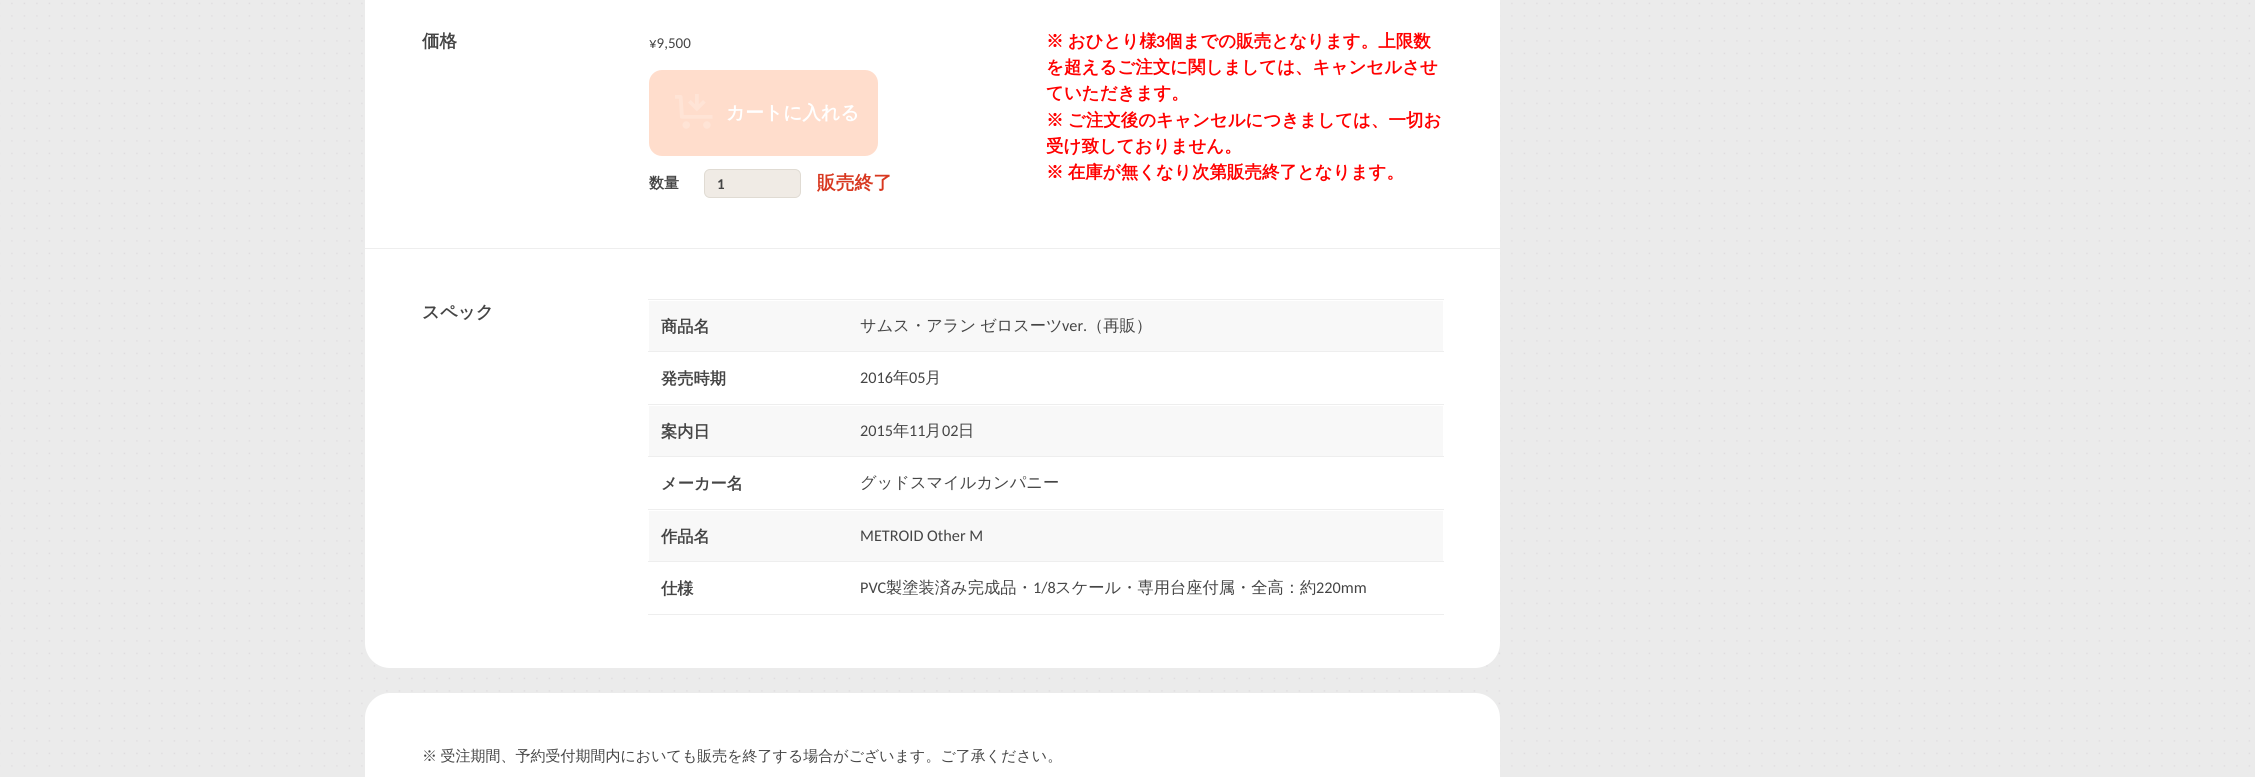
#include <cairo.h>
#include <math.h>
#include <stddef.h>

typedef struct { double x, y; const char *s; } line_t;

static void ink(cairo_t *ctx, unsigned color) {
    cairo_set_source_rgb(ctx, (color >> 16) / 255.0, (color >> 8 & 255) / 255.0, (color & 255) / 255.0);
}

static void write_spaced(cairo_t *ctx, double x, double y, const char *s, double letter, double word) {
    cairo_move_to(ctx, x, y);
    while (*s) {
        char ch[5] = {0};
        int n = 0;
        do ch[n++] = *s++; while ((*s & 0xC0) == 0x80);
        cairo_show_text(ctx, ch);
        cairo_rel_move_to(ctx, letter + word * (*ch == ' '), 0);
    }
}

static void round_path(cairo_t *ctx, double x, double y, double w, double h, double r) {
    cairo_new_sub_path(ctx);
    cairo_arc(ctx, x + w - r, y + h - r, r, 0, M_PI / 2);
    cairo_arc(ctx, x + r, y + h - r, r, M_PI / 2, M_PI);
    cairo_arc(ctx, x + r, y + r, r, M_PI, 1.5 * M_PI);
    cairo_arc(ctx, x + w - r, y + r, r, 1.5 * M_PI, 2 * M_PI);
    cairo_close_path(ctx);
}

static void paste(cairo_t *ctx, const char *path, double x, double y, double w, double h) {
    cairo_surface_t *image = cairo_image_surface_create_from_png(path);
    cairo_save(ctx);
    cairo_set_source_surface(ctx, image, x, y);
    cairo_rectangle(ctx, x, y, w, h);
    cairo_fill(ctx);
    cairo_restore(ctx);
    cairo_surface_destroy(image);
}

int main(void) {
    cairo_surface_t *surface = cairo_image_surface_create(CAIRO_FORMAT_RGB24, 2255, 777);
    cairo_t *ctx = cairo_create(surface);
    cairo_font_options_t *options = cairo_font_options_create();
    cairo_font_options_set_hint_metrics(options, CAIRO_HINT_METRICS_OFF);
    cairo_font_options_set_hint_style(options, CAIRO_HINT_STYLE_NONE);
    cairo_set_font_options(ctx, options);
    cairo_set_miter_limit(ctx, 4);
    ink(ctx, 0xFFFFFF);
    cairo_paint(ctx);
    paste(ctx, "media/1.png", 0, 0, 2255, 777);
    ink(ctx, 0xFFFFFF);
    round_path(ctx, 365, -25, 1135, 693, 25);
    cairo_fill(ctx);
    cairo_select_font_face(ctx, "WenQuanYi Zen Hei", CAIRO_FONT_SLANT_NORMAL, CAIRO_FONT_WEIGHT_BOLD);
    cairo_set_font_size(ctx, 17.5);
    ink(ctx, 0x454545);
    cairo_move_to(ctx, 422, 47);
    cairo_show_text(ctx, "価格");
    cairo_select_font_face(ctx, "Carlito", CAIRO_FONT_SLANT_NORMAL, CAIRO_FONT_WEIGHT_NORMAL);
    cairo_set_font_size(ctx, 15);
    cairo_move_to(ctx, 649, 48);
    cairo_show_text(ctx, "¥9,500");
    ink(ctx, 0xFFDDCC);
    round_path(ctx, 650.5, 71.5, 226, 83, 11.5);
    cairo_fill_preserve(ctx);
    cairo_set_line_width(ctx, 3);
    cairo_stroke(ctx);
    paste(ctx, "media/2.png", 675, 94, 38, 35);
    cairo_select_font_face(ctx, "WenQuanYi Zen Hei", CAIRO_FONT_SLANT_NORMAL, CAIRO_FONT_WEIGHT_BOLD);
    cairo_set_font_size(ctx, 18.75);
    ink(ctx, 0xFFFFFF);
    cairo_move_to(ctx, 726, 119);
    cairo_show_text(ctx, "カートに入れる");
    cairo_set_font_size(ctx, 15);
    ink(ctx, 0x454545);
    cairo_move_to(ctx, 649, 188);
    cairo_show_text(ctx, "数量");
    ink(ctx, 0xF0EBE5);
    round_path(ctx, 704.5, 169.5, 96, 28, 5.5);
    cairo_fill_preserve(ctx);
    ink(ctx, 0xE0DBD3);
    cairo_set_line_width(ctx, 1);
    cairo_stroke(ctx);
    cairo_select_font_face(ctx, "Carlito", CAIRO_FONT_SLANT_NORMAL, CAIRO_FONT_WEIGHT_BOLD);
    ink(ctx, 0x454545);
    cairo_move_to(ctx, 717, 189);
    cairo_show_text(ctx, "1");
    cairo_select_font_face(ctx, "WenQuanYi Zen Hei", CAIRO_FONT_SLANT_NORMAL, CAIRO_FONT_WEIGHT_BOLD);
    cairo_set_font_size(ctx, 18.75);
    ink(ctx, 0xD83820);
    cairo_move_to(ctx, 817, 189);
    cairo_show_text(ctx, "販売終了");
    cairo_set_font_size(ctx, 17.5);
    ink(ctx, 0xFF0000);
    write_spaced(ctx, 1046, 47, "※ おひとり様", 0, -1);
    cairo_select_font_face(ctx, "Carlito", CAIRO_FONT_SLANT_NORMAL, CAIRO_FONT_WEIGHT_BOLD);
    cairo_move_to(ctx, 1156, 47);
    cairo_show_text(ctx, "3");
    cairo_select_font_face(ctx, "WenQuanYi Zen Hei", CAIRO_FONT_SLANT_NORMAL, CAIRO_FONT_WEIGHT_BOLD);
    {
        static const line_t items[] = {
            {1165, 47, "個までの販売となります。上限数"},
            {1046, 73, "を超えるご注文に関しましては、キャンセルさせ"},
            {1046, 99, "ていただきます。"},
        };
        for (size_t i = 0; i < sizeof items / sizeof *items; i++) {
            cairo_move_to(ctx, items[i].x, items[i].y);
            cairo_show_text(ctx, items[i].s);
        }
    }
    write_spaced(ctx, 1046, 126, "※ ご注文後のキャンセルにつきましては、一切お", 0, -1);
    cairo_move_to(ctx, 1046, 152);
    cairo_show_text(ctx, "受け致しておりません。");
    write_spaced(ctx, 1046, 178, "※ 在庫が無くなり次第販売終了となります。", 0, -1);
    ink(ctx, 0xEEEEEE);
    cairo_rectangle(ctx, 365, 248, 1135, 1);
    cairo_fill(ctx);
    ink(ctx, 0x454545);
    cairo_move_to(ctx, 422, 318);
    cairo_show_text(ctx, "スペック");
    ink(ctx, 0xF8F8F8);
    cairo_rectangle(ctx, 649, 301, 794, 50);
    cairo_fill(ctx);
    ink(ctx, 0xEEEEEE);
    cairo_rectangle(ctx, 648, 299, 796, 1);
    cairo_fill(ctx);
    cairo_set_font_size(ctx, 16.25);
    ink(ctx, 0x454545);
    cairo_move_to(ctx, 661, 332);
    cairo_show_text(ctx, "商品名");
    cairo_select_font_face(ctx, "WenQuanYi Zen Hei Medium", CAIRO_FONT_SLANT_NORMAL, CAIRO_FONT_WEIGHT_NORMAL);
    write_spaced(ctx, 860, 331, "サムス・アラン ゼロスーツ", 0, -1);
    cairo_select_font_face(ctx, "Carlito", CAIRO_FONT_SLANT_NORMAL, CAIRO_FONT_WEIGHT_NORMAL);
    cairo_move_to(ctx, 1062, 331);
    cairo_show_text(ctx, "ver.");
    cairo_select_font_face(ctx, "WenQuanYi Zen Hei Medium", CAIRO_FONT_SLANT_NORMAL, CAIRO_FONT_WEIGHT_NORMAL);
    cairo_move_to(ctx, 1087, 331);
    cairo_show_text(ctx, "（再販）");
    ink(ctx, 0xEEEEEE);
    cairo_rectangle(ctx, 648, 351, 796, 1);
    cairo_fill(ctx);
    cairo_select_font_face(ctx, "WenQuanYi Zen Hei", CAIRO_FONT_SLANT_NORMAL, CAIRO_FONT_WEIGHT_BOLD);
    ink(ctx, 0x454545);
    cairo_move_to(ctx, 661, 384);
    cairo_show_text(ctx, "発売時期");
    cairo_select_font_face(ctx, "Carlito", CAIRO_FONT_SLANT_NORMAL, CAIRO_FONT_WEIGHT_NORMAL);
    cairo_move_to(ctx, 860, 383);
    cairo_show_text(ctx, "2016");
    cairo_select_font_face(ctx, "WenQuanYi Zen Hei Medium", CAIRO_FONT_SLANT_NORMAL, CAIRO_FONT_WEIGHT_NORMAL);
    cairo_move_to(ctx, 893, 383);
    cairo_show_text(ctx, "年");
    cairo_select_font_face(ctx, "Carlito", CAIRO_FONT_SLANT_NORMAL, CAIRO_FONT_WEIGHT_NORMAL);
    cairo_move_to(ctx, 909, 383);
    cairo_show_text(ctx, "05");
    cairo_select_font_face(ctx, "WenQuanYi Zen Hei Medium", CAIRO_FONT_SLANT_NORMAL, CAIRO_FONT_WEIGHT_NORMAL);
    cairo_move_to(ctx, 925, 383);
    cairo_show_text(ctx, "月");
    ink(ctx, 0xF8F8F8);
    cairo_rectangle(ctx, 649, 406, 794, 50);
    cairo_fill(ctx);
    ink(ctx, 0xEEEEEE);
    cairo_rectangle(ctx, 648, 404, 796, 1);
    cairo_fill(ctx);
    cairo_select_font_face(ctx, "WenQuanYi Zen Hei", CAIRO_FONT_SLANT_NORMAL, CAIRO_FONT_WEIGHT_BOLD);
    ink(ctx, 0x454545);
    cairo_move_to(ctx, 661, 437);
    cairo_show_text(ctx, "案内日");
    cairo_select_font_face(ctx, "Carlito", CAIRO_FONT_SLANT_NORMAL, CAIRO_FONT_WEIGHT_NORMAL);
    cairo_move_to(ctx, 860, 436);
    cairo_show_text(ctx, "2015");
    cairo_select_font_face(ctx, "WenQuanYi Zen Hei Medium", CAIRO_FONT_SLANT_NORMAL, CAIRO_FONT_WEIGHT_NORMAL);
    cairo_move_to(ctx, 893, 436);
    cairo_show_text(ctx, "年");
    cairo_select_font_face(ctx, "Carlito", CAIRO_FONT_SLANT_NORMAL, CAIRO_FONT_WEIGHT_NORMAL);
    cairo_move_to(ctx, 909, 436);
    cairo_show_text(ctx, "11");
    cairo_select_font_face(ctx, "WenQuanYi Zen Hei Medium", CAIRO_FONT_SLANT_NORMAL, CAIRO_FONT_WEIGHT_NORMAL);
    cairo_move_to(ctx, 925, 436);
    cairo_show_text(ctx, "月");
    cairo_select_font_face(ctx, "Carlito", CAIRO_FONT_SLANT_NORMAL, CAIRO_FONT_WEIGHT_NORMAL);
    cairo_move_to(ctx, 942, 436);
    cairo_show_text(ctx, "02");
    cairo_select_font_face(ctx, "WenQuanYi Zen Hei Medium", CAIRO_FONT_SLANT_NORMAL, CAIRO_FONT_WEIGHT_NORMAL);
    cairo_move_to(ctx, 958, 436);
    cairo_show_text(ctx, "日");
    ink(ctx, 0xEEEEEE);
    cairo_rectangle(ctx, 648, 456, 796, 1);
    cairo_fill(ctx);
    cairo_select_font_face(ctx, "WenQuanYi Zen Hei", CAIRO_FONT_SLANT_NORMAL, CAIRO_FONT_WEIGHT_BOLD);
    ink(ctx, 0x454545);
    cairo_move_to(ctx, 661, 489);
    cairo_show_text(ctx, "メーカー名");
    cairo_select_font_face(ctx, "WenQuanYi Zen Hei Medium", CAIRO_FONT_SLANT_NORMAL, CAIRO_FONT_WEIGHT_NORMAL);
    cairo_move_to(ctx, 860, 488);
    cairo_show_text(ctx, "グッドスマイルカンパニー");
    ink(ctx, 0xF8F8F8);
    cairo_rectangle(ctx, 649, 511, 794, 50);
    cairo_fill(ctx);
    ink(ctx, 0xEEEEEE);
    cairo_rectangle(ctx, 648, 509, 796, 1);
    cairo_fill(ctx);
    cairo_select_font_face(ctx, "WenQuanYi Zen Hei", CAIRO_FONT_SLANT_NORMAL, CAIRO_FONT_WEIGHT_BOLD);
    ink(ctx, 0x454545);
    cairo_move_to(ctx, 661, 542);
    cairo_show_text(ctx, "作品名");
    cairo_select_font_face(ctx, "Carlito", CAIRO_FONT_SLANT_NORMAL, CAIRO_FONT_WEIGHT_NORMAL);
    cairo_move_to(ctx, 860, 541);
    cairo_show_text(ctx, "METROID Other M");
    ink(ctx, 0xEEEEEE);
    cairo_rectangle(ctx, 648, 561, 796, 1);
    cairo_fill(ctx);
    cairo_rectangle(ctx, 648, 614, 796, 1);
    cairo_fill(ctx);
    cairo_select_font_face(ctx, "WenQuanYi Zen Hei", CAIRO_FONT_SLANT_NORMAL, CAIRO_FONT_WEIGHT_BOLD);
    ink(ctx, 0x454545);
    cairo_move_to(ctx, 661, 594);
    cairo_show_text(ctx, "仕様");
    cairo_select_font_face(ctx, "Carlito", CAIRO_FONT_SLANT_NORMAL, CAIRO_FONT_WEIGHT_NORMAL);
    cairo_move_to(ctx, 860, 593);
    cairo_show_text(ctx, "PVC");
    cairo_select_font_face(ctx, "WenQuanYi Zen Hei Medium", CAIRO_FONT_SLANT_NORMAL, CAIRO_FONT_WEIGHT_NORMAL);
    cairo_move_to(ctx, 886, 593);
    cairo_show_text(ctx, "製塗装済み完成品・");
    cairo_select_font_face(ctx, "Carlito", CAIRO_FONT_SLANT_NORMAL, CAIRO_FONT_WEIGHT_NORMAL);
    cairo_move_to(ctx, 1033, 593);
    cairo_show_text(ctx, "1/8");
    cairo_select_font_face(ctx, "WenQuanYi Zen Hei Medium", CAIRO_FONT_SLANT_NORMAL, CAIRO_FONT_WEIGHT_NORMAL);
    cairo_move_to(ctx, 1055, 593);
    cairo_show_text(ctx, "スケール・専用台座付属・全高：約");
    cairo_select_font_face(ctx, "Carlito", CAIRO_FONT_SLANT_NORMAL, CAIRO_FONT_WEIGHT_NORMAL);
    cairo_move_to(ctx, 1316, 593);
    cairo_show_text(ctx, "220mm");
    ink(ctx, 0xFFFFFF);
    round_path(ctx, 365, 693, 1135, 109, 25);
    cairo_fill(ctx);
    cairo_select_font_face(ctx, "WenQuanYi Zen Hei Medium", CAIRO_FONT_SLANT_NORMAL, CAIRO_FONT_WEIGHT_NORMAL);
    cairo_set_font_size(ctx, 15);
    ink(ctx, 0x454545);
    write_spaced(ctx, 422, 761, "※ 受注期間、予約受付期間内においても販売を終了する場合がございます。ご了承ください。", 0, -1);
    cairo_surface_write_to_png(surface, "image.png");
    cairo_font_options_destroy(options);
    cairo_destroy(ctx);
    cairo_surface_destroy(surface);
    return 0;
}
